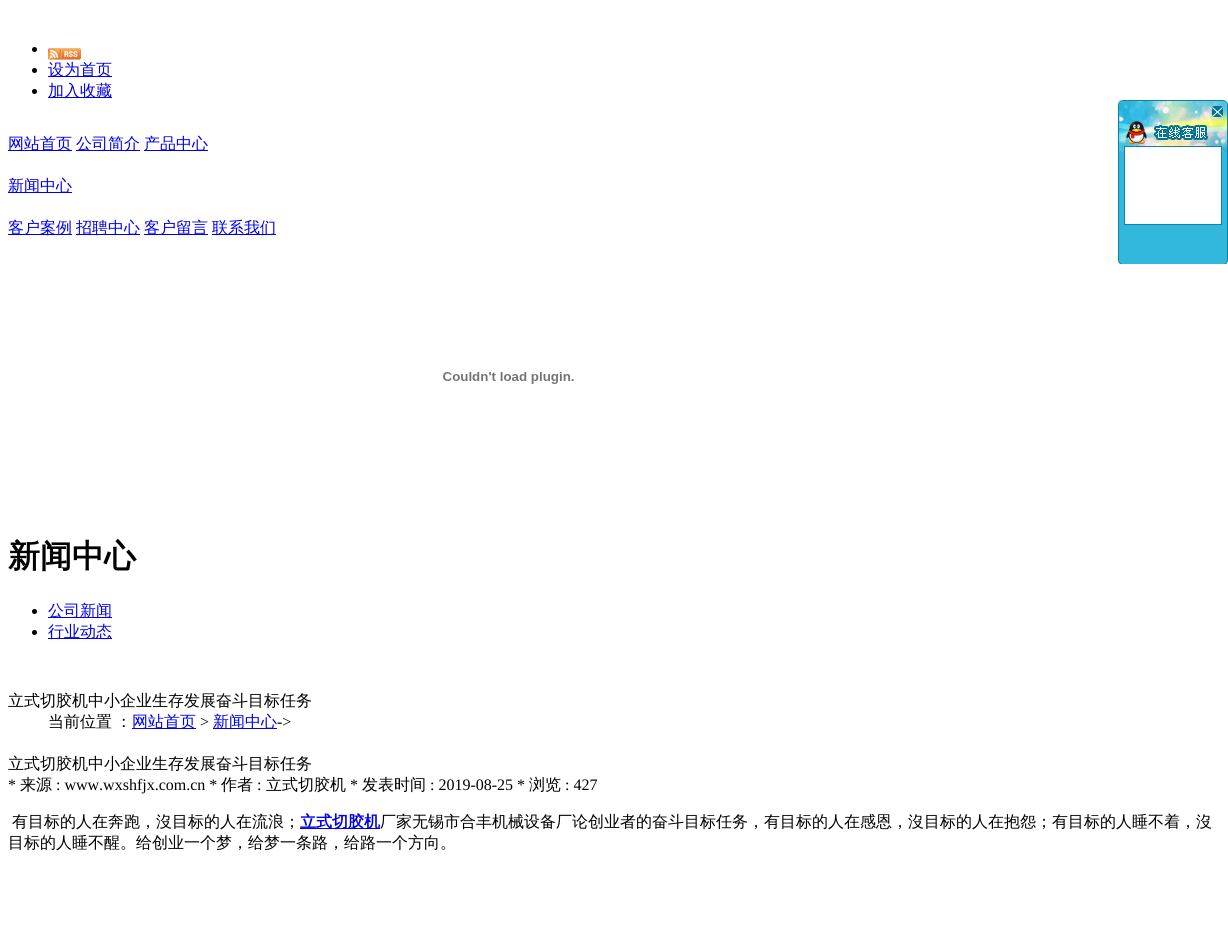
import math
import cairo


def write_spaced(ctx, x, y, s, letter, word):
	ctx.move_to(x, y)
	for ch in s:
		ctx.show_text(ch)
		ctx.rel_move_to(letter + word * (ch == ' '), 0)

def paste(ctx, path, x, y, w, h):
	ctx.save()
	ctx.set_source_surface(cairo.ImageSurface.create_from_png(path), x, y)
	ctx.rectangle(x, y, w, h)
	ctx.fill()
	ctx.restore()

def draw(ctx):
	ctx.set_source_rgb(1, 1, 1)
	ctx.paint()
	ctx.set_source_rgb(0, 0, 0)
	ctx.arc(34.5, 49.5, 2.5, 0, 2 * math.pi)
	ctx.fill()
	paste(ctx, 'media/1.png', 48, 48, 33, 12)
	ctx.arc(34.5, 70.5, 2.5, 0, 2 * math.pi)
	ctx.fill()
	ctx.set_source_rgb(0, 0, 0.933)
	ctx.rectangle(48, 76, 64, 1)
	ctx.fill()
	ctx.select_font_face('WenQuanYi Zen Hei Medium')
	ctx.set_font_size(16)
	ctx.move_to(48, 75)
	ctx.show_text('设为首页')
	ctx.set_source_rgb(0, 0, 0)
	ctx.new_path()
	ctx.arc(34.5, 91.5, 2.5, 0, 2 * math.pi)
	ctx.fill()
	ctx.set_source_rgb(0, 0, 0.933)
	ctx.rectangle(48, 97, 64, 1)
	ctx.fill()
	ctx.move_to(48, 96)
	ctx.show_text('加入收藏')
	ctx.rectangle(8, 150, 64, 1)
	ctx.fill()
	ctx.move_to(8, 149)
	ctx.show_text('网站首页')
	ctx.rectangle(76, 150, 64, 1)
	ctx.fill()
	ctx.move_to(76, 149)
	ctx.show_text('公司简介')
	ctx.rectangle(144, 150, 64, 1)
	ctx.fill()
	ctx.move_to(144, 149)
	ctx.show_text('产品中心')
	ctx.rectangle(8, 192, 64, 1)
	ctx.fill()
	ctx.move_to(8, 191)
	ctx.show_text('新闻中心')
	ctx.rectangle(8, 234, 64, 1)
	ctx.fill()
	ctx.move_to(8, 233)
	ctx.show_text('客户案例')
	ctx.rectangle(76, 234, 64, 1)
	ctx.fill()
	ctx.move_to(76, 233)
	ctx.show_text('招聘中心')
	ctx.rectangle(144, 234, 64, 1)
	ctx.fill()
	ctx.move_to(144, 233)
	ctx.show_text('客户留言')
	ctx.rectangle(212, 234, 64, 1)
	ctx.fill()
	ctx.move_to(212, 233)
	ctx.show_text('联系我们')
	paste(ctx, 'media/2.png', 1118, 100, 110, 52)
	paste(ctx, 'media/3.png', 1118, 152, 110, 70)
	paste(ctx, 'media/4.png', 1118, 222, 110, 42)
	paste(ctx, 'media/5.png', 443, 372, 131, 12)
	ctx.select_font_face('WenQuanYi Zen Hei', cairo.FONT_SLANT_NORMAL, cairo.FONT_WEIGHT_BOLD)
	ctx.set_font_size(32)
	ctx.set_source_rgb(0, 0, 0)
	ctx.move_to(8, 567)
	ctx.show_text('新闻中心')
	ctx.new_path()
	ctx.arc(34.5, 611.5, 2.5, 0, 2 * math.pi)
	ctx.fill()
	ctx.set_source_rgb(0, 0, 0.933)
	ctx.rectangle(48, 617, 64, 1)
	ctx.fill()
	ctx.select_font_face('WenQuanYi Zen Hei Medium')
	ctx.set_font_size(16)
	ctx.move_to(48, 616)
	ctx.show_text('公司新闻')
	ctx.set_source_rgb(0, 0, 0)
	ctx.new_path()
	ctx.arc(34.5, 632.5, 2.5, 0, 2 * math.pi)
	ctx.fill()
	ctx.set_source_rgb(0, 0, 0.933)
	ctx.rectangle(48, 638, 64, 1)
	ctx.fill()
	ctx.move_to(48, 637)
	ctx.show_text('行业动态')
	ctx.set_source_rgb(0, 0, 0)
	ctx.move_to(8, 706)
	ctx.show_text('立式切胶机中小企业生存发展奋斗目标任务')
	write_spaced(ctx, 48, 727, '当前位置 ：', 0, -1)
	ctx.set_source_rgb(0, 0, 0.933)
	ctx.rectangle(132, 728, 64, 1)
	ctx.fill()
	ctx.move_to(132, 727)
	ctx.show_text('网站首页')
	ctx.select_font_face('Liberation Serif')
	ctx.set_source_rgb(0, 0, 0)
	ctx.move_to(200, 727)
	ctx.show_text('>')
	ctx.set_source_rgb(0, 0, 0.933)
	ctx.rectangle(213, 728, 64, 1)
	ctx.fill()
	ctx.select_font_face('WenQuanYi Zen Hei Medium')
	ctx.move_to(213, 727)
	ctx.show_text('新闻中心')
	ctx.select_font_face('Liberation Serif')
	ctx.set_source_rgb(0, 0, 0)
	ctx.move_to(277, 727)
	ctx.show_text('->')
	ctx.select_font_face('WenQuanYi Zen Hei Medium')
	ctx.move_to(8, 769)
	ctx.show_text('立式切胶机中小企业生存发展奋斗目标任务')
	ctx.select_font_face('Liberation Serif')
	ctx.move_to(8, 790)
	ctx.show_text('*')
	ctx.select_font_face('WenQuanYi Zen Hei Medium')
	ctx.move_to(20, 790)
	ctx.show_text('来源')
	ctx.select_font_face('Liberation Serif')
	ctx.move_to(56, 790)
	ctx.show_text(': www.wxshfjx.com.cn *')
	ctx.select_font_face('WenQuanYi Zen Hei Medium')
	ctx.move_to(221, 790)
	ctx.show_text('作者')
	ctx.select_font_face('Liberation Serif')
	ctx.move_to(257, 790)
	ctx.show_text(':')
	ctx.select_font_face('WenQuanYi Zen Hei Medium')
	ctx.move_to(266, 790)
	ctx.show_text('立式切胶机')
	ctx.select_font_face('Liberation Serif')
	ctx.move_to(350, 790)
	ctx.show_text('*')
	ctx.select_font_face('WenQuanYi Zen Hei Medium')
	ctx.move_to(362, 790)
	ctx.show_text('发表时间')
	ctx.select_font_face('Liberation Serif')
	ctx.move_to(430, 790)
	ctx.show_text(': 2019-08-25 *')
	ctx.select_font_face('WenQuanYi Zen Hei Medium')
	ctx.move_to(529, 790)
	ctx.show_text('浏览')
	ctx.select_font_face('Liberation Serif')
	ctx.move_to(565, 790)
	ctx.show_text(': 427')
	ctx.select_font_face('WenQuanYi Zen Hei Medium')
	ctx.move_to(12, 827)
	ctx.show_text('有目标的人在奔跑，沒目标的人在流浪；')
	ctx.set_source_rgb(0, 0, 0.933)
	ctx.rectangle(300, 828, 80, 1)
	ctx.fill()
	ctx.select_font_face('WenQuanYi Zen Hei', cairo.FONT_SLANT_NORMAL, cairo.FONT_WEIGHT_BOLD)
	ctx.move_to(300, 827)
	ctx.show_text('立式切胶机')
	ctx.select_font_face('WenQuanYi Zen Hei Medium')
	ctx.set_source_rgb(0, 0, 0)
	ctx.move_to(380, 827)
	ctx.show_text('厂家无锡市合丰机械设备厂论创业者的奋斗目标任务，有目标的人在感恩，沒目标的人在抱怨；有目标的人睡不着，沒')
	ctx.move_to(8, 848)
	ctx.show_text('目标的人睡不醒。给创业一个梦，给梦一条路，给路一个方向。')


surface = cairo.ImageSurface(cairo.FORMAT_RGB24, 1228, 952)
ctx = cairo.Context(surface)
options = cairo.FontOptions()
options.set_hint_metrics(cairo.HINT_METRICS_OFF)
options.set_hint_style(cairo.HINT_STYLE_NONE)
ctx.set_font_options(options)
ctx.set_miter_limit(4)
draw(ctx)
surface.write_to_png('image.png')
